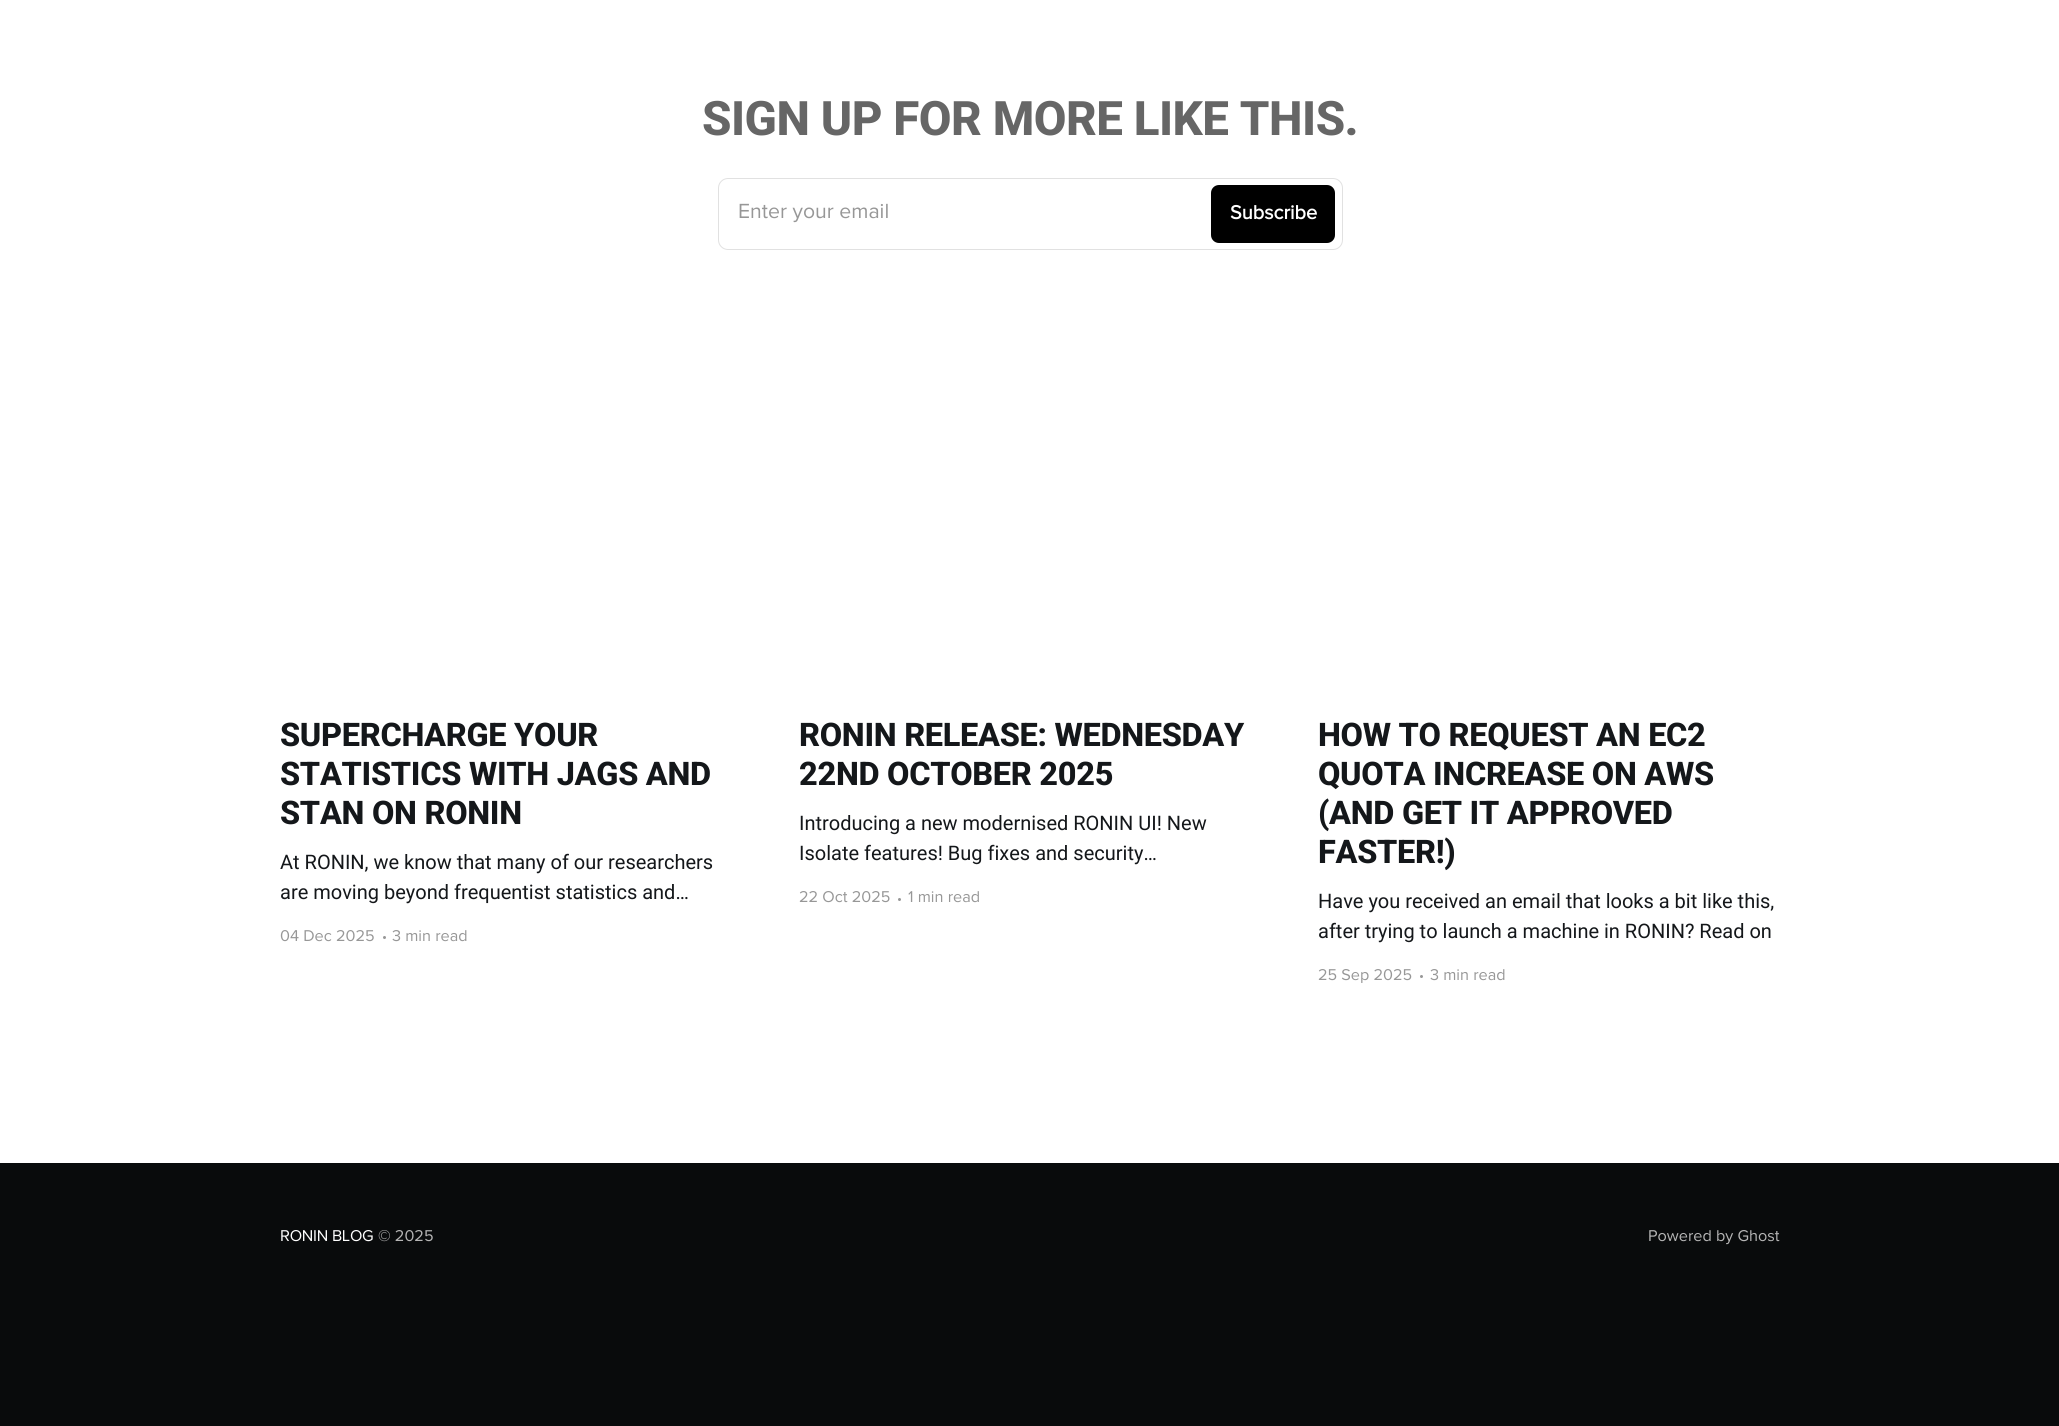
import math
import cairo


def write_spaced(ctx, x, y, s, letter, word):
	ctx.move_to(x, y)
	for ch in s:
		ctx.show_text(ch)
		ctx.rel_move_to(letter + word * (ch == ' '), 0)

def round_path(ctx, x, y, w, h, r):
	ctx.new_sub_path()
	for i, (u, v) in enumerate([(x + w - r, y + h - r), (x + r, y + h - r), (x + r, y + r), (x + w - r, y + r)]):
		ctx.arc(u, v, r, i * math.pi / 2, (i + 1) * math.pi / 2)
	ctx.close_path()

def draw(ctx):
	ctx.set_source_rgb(1, 1, 1)
	ctx.paint()
	ctx.select_font_face('Roboto ExtraBold')
	ctx.set_font_size(47.5)
	ctx.set_source_rgb(0.4, 0.4, 0.4)
	write_spaced(ctx, 702, 135, 'SIGN UP FOR MORE LIKE THIS.', -0.5, 0)
	round_path(ctx, 718.5, 178.5, 624, 71, 9.5)
	ctx.set_source_rgb(0.882, 0.882, 0.882)
	ctx.set_line_width(1)
	ctx.stroke()
	ctx.select_font_face('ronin')
	ctx.set_font_size(21.25)
	ctx.set_source_rgb(0.592, 0.592, 0.592)
	ctx.move_to(738, 218)
	ctx.show_text('Enter your email')
	ctx.set_source_rgb(0, 0, 0)
	round_path(ctx, 1211, 185, 124, 58, 8)
	ctx.fill()
	ctx.select_font_face('ronin', cairo.FONT_SLANT_NORMAL, cairo.FONT_WEIGHT_BOLD)
	ctx.set_font_size(20)
	ctx.set_source_rgb(1, 1, 1)
	ctx.move_to(1230, 219)
	ctx.show_text('Subscribe')
	ctx.select_font_face('Roboto ExtraBold')
	ctx.set_font_size(32.5)
	ctx.set_source_rgb(0.082, 0.09, 0.102)
	for x, y, s in [
		(280, 746, 'SUPERCHARGE YOUR'),
		(280, 785, 'STATISTICS WITH JAGS AND'),
		(280, 824, 'STAN ON RONIN'),
	]:
		write_spaced(ctx, x, y, s, -0.3, 0)
	ctx.select_font_face('Roboto')
	ctx.set_font_size(20)
	ctx.move_to(280, 869)
	ctx.show_text('At RONIN, we know that many of our researchers')
	ctx.move_to(280, 899)
	ctx.show_text('are moving beyond frequentist statistics and…')
	ctx.select_font_face('ronin')
	ctx.set_font_size(16.25)
	ctx.set_source_rgb(0.592, 0.592, 0.592)
	ctx.move_to(280, 941)
	ctx.show_text('04 Dec 2025')
	ctx.new_path()
	ctx.arc(384.5, 937.5, 1.5, 0, 2 * math.pi)
	ctx.fill()
	ctx.move_to(392, 941)
	ctx.show_text('3 min read')
	ctx.select_font_face('Roboto ExtraBold')
	ctx.set_font_size(32.5)
	ctx.set_source_rgb(0.082, 0.09, 0.102)
	write_spaced(ctx, 799, 746, 'RONIN RELEASE: WEDNESDAY', -0.3, 0)
	write_spaced(ctx, 799, 785, '22ND OCTOBER 2025', -0.3, 0)
	ctx.select_font_face('Roboto')
	ctx.set_font_size(20)
	ctx.move_to(799, 830)
	ctx.show_text('Introducing a new modernised RONIN UI! New')
	ctx.move_to(799, 860)
	ctx.show_text('Isolate features! Bug fixes and security…')
	ctx.select_font_face('ronin')
	ctx.set_font_size(16.25)
	ctx.set_source_rgb(0.592, 0.592, 0.592)
	ctx.move_to(799, 902)
	ctx.show_text('22 Oct 2025')
	ctx.new_path()
	ctx.arc(899.5, 899.5, 1.5, 0, 2 * math.pi)
	ctx.fill()
	ctx.move_to(908, 902)
	ctx.show_text('1 min read')
	ctx.select_font_face('Roboto ExtraBold')
	ctx.set_font_size(32.5)
	ctx.set_source_rgb(0.082, 0.09, 0.102)
	for x, y, s in [
		(1318, 746, 'HOW TO REQUEST AN EC2'),
		(1318, 785, 'QUOTA INCREASE ON AWS'),
		(1318, 824, '(AND GET IT APPROVED'),
		(1318, 863, 'FASTER!)'),
	]:
		write_spaced(ctx, x, y, s, -0.3, 0)
	ctx.select_font_face('Roboto')
	ctx.set_font_size(20)
	ctx.move_to(1318, 908)
	ctx.show_text('Have you received an email that looks a bit like this,')
	ctx.move_to(1318, 938)
	ctx.show_text('after trying to launch a machine in RONIN? Read on')
	ctx.select_font_face('ronin')
	ctx.set_font_size(16.25)
	ctx.set_source_rgb(0.592, 0.592, 0.592)
	ctx.move_to(1318, 980)
	ctx.show_text('25 Sep 2025')
	ctx.new_path()
	ctx.arc(1421.5, 976.5, 1.5, 0, 2 * math.pi)
	ctx.fill()
	ctx.move_to(1430, 980)
	ctx.show_text('3 min read')
	ctx.set_source_rgb(0.039, 0.043, 0.047)
	ctx.rectangle(0, 1163, 2059, 263)
	ctx.fill()
	ctx.set_source_rgb(1, 1, 1)
	write_spaced(ctx, 280, 1241, 'RONIN BLOG', -0.25, 0)
	ctx.set_source_rgb(0.714, 0.714, 0.714)
	ctx.move_to(378, 1241)
	ctx.show_text('© 2025')
	ctx.move_to(1648, 1241)
	ctx.show_text('Powered by Ghost')


surface = cairo.ImageSurface(cairo.FORMAT_RGB24, 2059, 1426)
ctx = cairo.Context(surface)
options = cairo.FontOptions()
options.set_hint_metrics(cairo.HINT_METRICS_OFF)
options.set_hint_style(cairo.HINT_STYLE_NONE)
ctx.set_font_options(options)
ctx.set_miter_limit(4)
draw(ctx)
surface.write_to_png('image.png')
